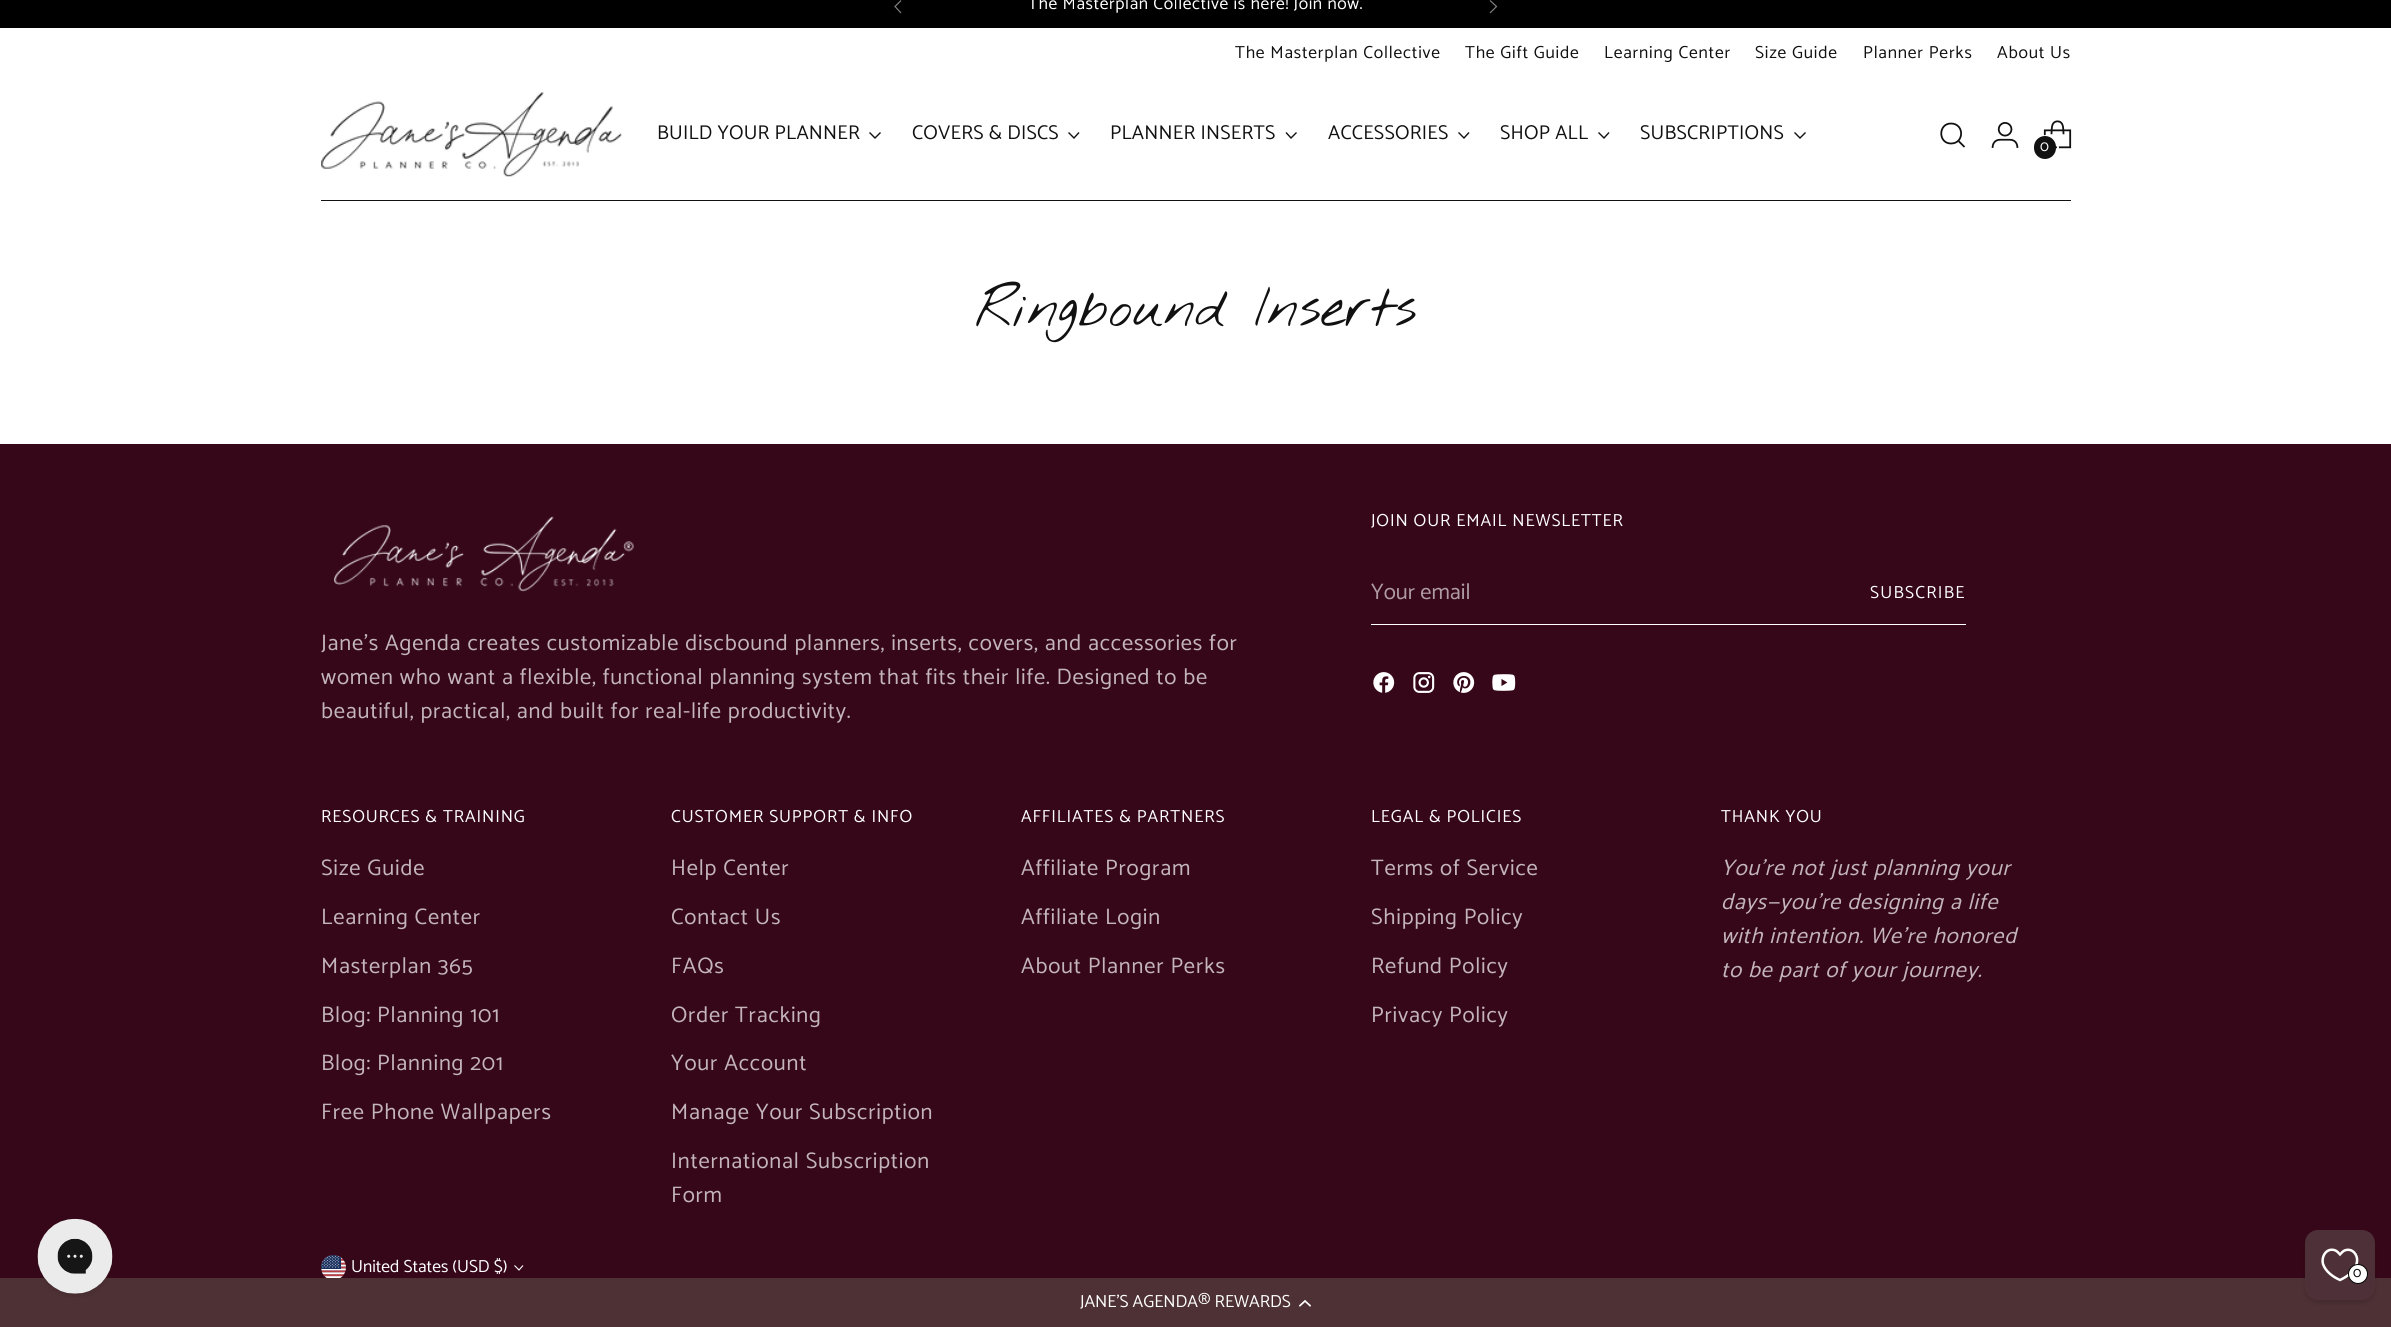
import math
import cairo


def write_spaced(ctx, x, y, s, letter, word):
	ctx.move_to(x, y)
	for ch in s:
		ctx.show_text(ch)
		ctx.rel_move_to(letter + word * (ch == ' '), 0)

def round_path(ctx, x, y, w, h, r):
	ctx.new_sub_path()
	for i, (u, v) in enumerate([(x + w - r, y + h - r), (x + r, y + h - r), (x + r, y + r), (x + w - r, y + r)]):
		ctx.arc(u, v, r, i * math.pi / 2, (i + 1) * math.pi / 2)
	ctx.close_path()

def blur_box(ctx, x, y, w, h, r, blur, alpha):
	ctx.push_group_with_content(cairo.CONTENT_ALPHA)
	ctx.set_operator(cairo.OPERATOR_SOURCE)
	for i in range(15, -16, -2):
		e = blur * i / 6
		if min(w, h) + 2 * e > 0:
			ctx.set_source_rgba(0, 0, 0, alpha * math.erfc((i - 1) / 8.5) / 2)
			round_path(ctx, x - e, y - e, w + 2 * e, h + 2 * e, max(0, min(r + e + blur * .6, min(w, h) / 2 + e)))
			ctx.fill()
	ctx.mask(ctx.pop_group())

def paste(ctx, path, x, y, w, h):
	ctx.save()
	ctx.set_source_surface(cairo.ImageSurface.create_from_png(path), x, y)
	ctx.rectangle(x, y, w, h)
	ctx.fill()
	ctx.restore()

def draw(ctx):
	ctx.set_source_rgb(1, 1, 1)
	ctx.paint()
	ctx.set_source_rgb(0.212, 0.031, 0.094)
	ctx.rectangle(0, 444, 2391, 834)
	ctx.fill()
	ctx.set_source_rgb(0.306, 0.192, 0.208)
	ctx.rectangle(0, 1278, 2391, 49)
	ctx.fill()
	paste(ctx, 'media/1.png', 37, 1218, 76, 79)
	ctx.set_source_rgb(0, 0, 0)
	ctx.rectangle(0, 0, 2391, 28)
	ctx.fill()
	ctx.new_path()
	ctx.move_to(901, 0.5)
	ctx.line_to(895, 6.5)
	ctx.line_to(901, 13)
	ctx.set_source_rgb(0.502, 0.502, 0.502)
	ctx.set_line_width(1.2)
	ctx.stroke()
	ctx.new_path()
	ctx.move_to(1490, 13)
	ctx.line_to(1496.5, 6.5)
	ctx.line_to(1490, 0.5)
	ctx.stroke()
	ctx.select_font_face('Catamaran Thin')
	ctx.set_font_size(17.5)
	ctx.set_source_rgb(1, 1, 1)
	write_spaced(ctx, 1028, 9, 'The Masterplan Collective is here! Join now.', 0.6, 0)
	ctx.set_source_rgb(0.067, 0.067, 0.067)
	ctx.rectangle(321, 200, 1750, 1)
	ctx.fill()
	for x, y, s in [
		(1235, 58, 'The Masterplan Collective'),
		(1465, 58, 'The Gift Guide'),
		(1604, 58, 'Learning Center'),
		(1755, 58, 'Size Guide'),
		(1863, 58, 'Planner Perks'),
		(1997, 58, 'About Us'),
	]:
		write_spaced(ctx, x, y, s, 0.8, 0)
	paste(ctx, 'media/2.png', 321, 92, 301, 85)
	ctx.set_font_size(20)
	write_spaced(ctx, 657, 139, 'BUILD YOUR PLANNER', 0.25, 0)
	ctx.new_path()
	ctx.move_to(869.5, 132.5)
	ctx.line_to(875, 138)
	ctx.line_to(880.5, 132.5)
	ctx.set_line_width(1.4)
	ctx.stroke()
	write_spaced(ctx, 912, 139, 'COVERS & DISCS', 0.25, 0)
	ctx.new_path()
	ctx.move_to(1068.5, 132.5)
	ctx.line_to(1074, 138)
	ctx.line_to(1079, 132.5)
	ctx.stroke()
	write_spaced(ctx, 1110, 139, 'PLANNER INSERTS', 0.25, 0)
	ctx.new_path()
	ctx.move_to(1286, 132.5)
	ctx.line_to(1291, 138)
	ctx.line_to(1296.5, 132.5)
	ctx.stroke()
	write_spaced(ctx, 1328, 139, 'ACCESSORIES', 0.25, 0)
	ctx.new_path()
	ctx.move_to(1458.5, 132.5)
	ctx.line_to(1464, 138)
	ctx.line_to(1469, 132.5)
	ctx.stroke()
	write_spaced(ctx, 1500, 139, 'SHOP ALL', 0.25, 0)
	ctx.new_path()
	ctx.move_to(1598.5, 132.5)
	ctx.line_to(1604, 138)
	ctx.line_to(1609, 132.5)
	ctx.stroke()
	write_spaced(ctx, 1640, 139, 'SUBSCRIPTIONS', 0.25, 0)
	ctx.new_path()
	ctx.move_to(1794.5, 132.5)
	ctx.line_to(1800, 138)
	ctx.line_to(1805.5, 132.5)
	ctx.stroke()
	ctx.new_path()
	ctx.move_to(1951, 143.5)
	ctx.curve_to(1964.5, 143.5, 1964.5, 123.5, 1951, 123.5)
	ctx.curve_to(1938, 123.5, 1938, 143.5, 1951, 143.5)
	ctx.close_path()
	ctx.set_line_width(1.8)
	ctx.set_line_cap(cairo.LINE_CAP_ROUND)
	ctx.stroke()
	ctx.new_path()
	ctx.move_to(1958.5, 141)
	ctx.line_to(1964.5, 147)
	ctx.set_line_cap(cairo.LINE_CAP_BUTT)
	ctx.stroke()
	paste(ctx, 'media/3.png', 1991, 122, 28, 26)
	paste(ctx, 'media/4.png', 2043, 120, 29, 29)
	ctx.arc(2046, 148, 12, 0, 2 * math.pi)
	ctx.set_source_rgb(1, 1, 1)
	ctx.set_line_width(2)
	ctx.stroke()
	ctx.set_source_rgb(0.067, 0.067, 0.067)
	round_path(ctx, 2034, 136, 22, 23, 11)
	ctx.fill()
	ctx.set_font_size(15)
	ctx.set_source_rgb(1, 1, 1)
	write_spaced(ctx, 2040, 151, '0', 0.8, 0)
	ctx.select_font_face('Nothing You Could Do')
	ctx.set_font_size(56.25)
	ctx.set_source_rgb(0.067, 0.067, 0.067)
	ctx.move_to(975, 326)
	ctx.show_text('Ringbound Inserts')
	ctx.select_font_face('Catamaran Thin')
	ctx.set_font_size(17.5)
	ctx.set_source_rgb(1, 1, 1)
	write_spaced(ctx, 1371, 526, 'JOIN OUR EMAIL NEWSLETTER', 0.9, 0)
	ctx.rectangle(1371, 624, 595, 1)
	ctx.fill()
	ctx.set_font_size(22.5)
	ctx.set_source_rgb(0.686, 0.612, 0.639)
	ctx.move_to(1371, 599)
	ctx.show_text('Your email')
	ctx.set_font_size(17.5)
	ctx.set_source_rgb(1, 1, 1)
	write_spaced(ctx, 1870, 598, 'SUBSCRIBE', 1.25, 0)
	paste(ctx, 'media/5.png', 1373, 672, 22, 21)
	paste(ctx, 'media/6.png', 1413, 672, 22, 21)
	paste(ctx, 'media/7.png', 1453, 672, 22, 21)
	paste(ctx, 'media/8.png', 1492, 674, 24, 17)
	paste(ctx, 'media/9.png', 334, 516, 300, 76)
	ctx.set_font_size(22.5)
	ctx.set_source_rgb(0.765, 0.71, 0.729)
	for x, y, s in [
		(321, 650, 'Jane’s Agenda creates customizable discbound planners, inserts, covers, and accessories for'),
		(321, 684, 'women who want a flexible, functional planning system that fits their life. Designed to be'),
		(321, 718, 'beautiful, practical, and built for real-life productivity.'),
	]:
		write_spaced(ctx, x, y, s, 0.8, 0)
	ctx.set_font_size(17.5)
	ctx.set_source_rgb(1, 1, 1)
	write_spaced(ctx, 321, 822, 'RESOURCES & TRAINING', 0.9, 0)
	ctx.set_font_size(22.5)
	ctx.set_source_rgb(0.765, 0.71, 0.729)
	for x, y, s in [
		(321, 875, 'Size Guide'),
		(321, 924, 'Learning Center'),
		(321, 973, 'Masterplan 365'),
		(321, 1022, 'Blog: Planning 101'),
		(321, 1070, 'Blog: Planning 201'),
		(321, 1119, 'Free Phone Wallpapers'),
	]:
		write_spaced(ctx, x, y, s, 0.8, 0)
	ctx.set_font_size(17.5)
	ctx.set_source_rgb(1, 1, 1)
	write_spaced(ctx, 671, 822, 'CUSTOMER SUPPORT & INFO', 0.9, 0)
	ctx.set_font_size(22.5)
	ctx.set_source_rgb(0.765, 0.71, 0.729)
	for x, y, s in [
		(671, 875, 'Help Center'),
		(671, 924, 'Contact Us'),
		(671, 973, 'FAQs'),
		(671, 1022, 'Order Tracking'),
		(671, 1070, 'Your Account'),
		(671, 1119, 'Manage Your Subscription'),
		(671, 1168, 'International Subscription'),
		(671, 1202, 'Form'),
	]:
		write_spaced(ctx, x, y, s, 0.8, 0)
	ctx.set_font_size(17.5)
	ctx.set_source_rgb(1, 1, 1)
	write_spaced(ctx, 1021, 822, 'AFFILIATES & PARTNERS', 0.9, 0)
	ctx.set_font_size(22.5)
	ctx.set_source_rgb(0.765, 0.71, 0.729)
	for x, y, s in [
		(1021, 875, 'Affiliate Program'),
		(1021, 924, 'Affiliate Login'),
		(1021, 973, 'About Planner Perks'),
	]:
		write_spaced(ctx, x, y, s, 0.8, 0)
	ctx.set_font_size(17.5)
	ctx.set_source_rgb(1, 1, 1)
	write_spaced(ctx, 1371, 822, 'LEGAL & POLICIES', 0.9, 0)
	ctx.set_font_size(22.5)
	ctx.set_source_rgb(0.765, 0.71, 0.729)
	for x, y, s in [
		(1371, 875, 'Terms of Service'),
		(1371, 924, 'Shipping Policy'),
		(1371, 973, 'Refund Policy'),
		(1371, 1022, 'Privacy Policy'),
	]:
		write_spaced(ctx, x, y, s, 0.8, 0)
	ctx.set_font_size(17.5)
	ctx.set_source_rgb(1, 1, 1)
	write_spaced(ctx, 1721, 822, 'THANK YOU', 0.9, 0)
	ctx.select_font_face('Catamaran Thin', cairo.FONT_SLANT_ITALIC)
	ctx.set_font_size(22.5)
	ctx.set_source_rgb(0.765, 0.71, 0.729)
	for x, y, s in [
		(1721, 875, 'You’re not just planning your'),
		(1721, 909, 'days—you’re designing a life'),
		(1721, 943, 'with intention. We’re honored'),
		(1721, 977, 'to be part of your journey.'),
	]:
		write_spaced(ctx, x, y, s, 0.8, 0)
	paste(ctx, 'media/10.png', 321, 1255, 25, 23)
	ctx.select_font_face('Catamaran Thin')
	ctx.set_font_size(17.5)
	ctx.set_source_rgb(1, 1, 1)
	ctx.move_to(351, 1272)
	ctx.show_text('United States (USD $)')
	ctx.new_path()
	ctx.move_to(514.5, 1265.5)
	ctx.line_to(519, 1270)
	ctx.line_to(523, 1265.5)
	ctx.set_line_width(1.1)
	ctx.stroke()
	ctx.set_source_rgb(0, 0, 0)
	blur_box(ctx, 2305, 1233, 70, 70, 13, 2.5, 0.15)
	ctx.set_source_rgb(0.306, 0.192, 0.22)
	round_path(ctx, 2307.5, 1232.5, 65, 65, 10.5)
	ctx.fill_preserve()
	ctx.set_line_width(5)
	ctx.stroke()
	ctx.new_path()
	ctx.move_to(2340, 1280)
	ctx.curve_to(2333, 1277, 2325.5, 1271.5, 2323, 1264)
	ctx.curve_to(2321, 1256, 2327, 1247, 2335.5, 1250.5)
	ctx.curve_to(2337.5, 1251.5, 2338.5, 1253, 2340, 1254.5)
	ctx.curve_to(2341.5, 1253, 2342.5, 1251.5, 2344.5, 1250.5)
	ctx.curve_to(2352, 1247.5, 2358, 1254.5, 2357, 1261.5)
	ctx.curve_to(2356, 1270.5, 2347.5, 1276.5, 2340, 1280)
	ctx.close_path()
	ctx.set_source_rgb(1, 1, 1)
	ctx.set_line_width(2.5)
	ctx.stroke()
	ctx.arc(2358, 1274, 9.5, 0, 2 * math.pi)
	ctx.fill_preserve()
	ctx.set_source_rgb(0, 0, 0)
	ctx.set_line_width(1)
	ctx.stroke()
	ctx.set_font_size(14)
	write_spaced(ctx, 2353, 1277, '0', 0.8, 0)
	ctx.set_font_size(17.5)
	ctx.set_source_rgb(1, 1, 1)
	ctx.move_to(1080, 1307)
	ctx.show_text('JANE\'S AGENDA® REWARDS')
	paste(ctx, 'media/11.png', 1299, 1299, 12, 8)


surface = cairo.ImageSurface(cairo.FORMAT_RGB24, 2391, 1327)
ctx = cairo.Context(surface)
options = cairo.FontOptions()
options.set_hint_metrics(cairo.HINT_METRICS_OFF)
options.set_hint_style(cairo.HINT_STYLE_NONE)
ctx.set_font_options(options)
ctx.set_miter_limit(4)
draw(ctx)
surface.write_to_png('image.png')
